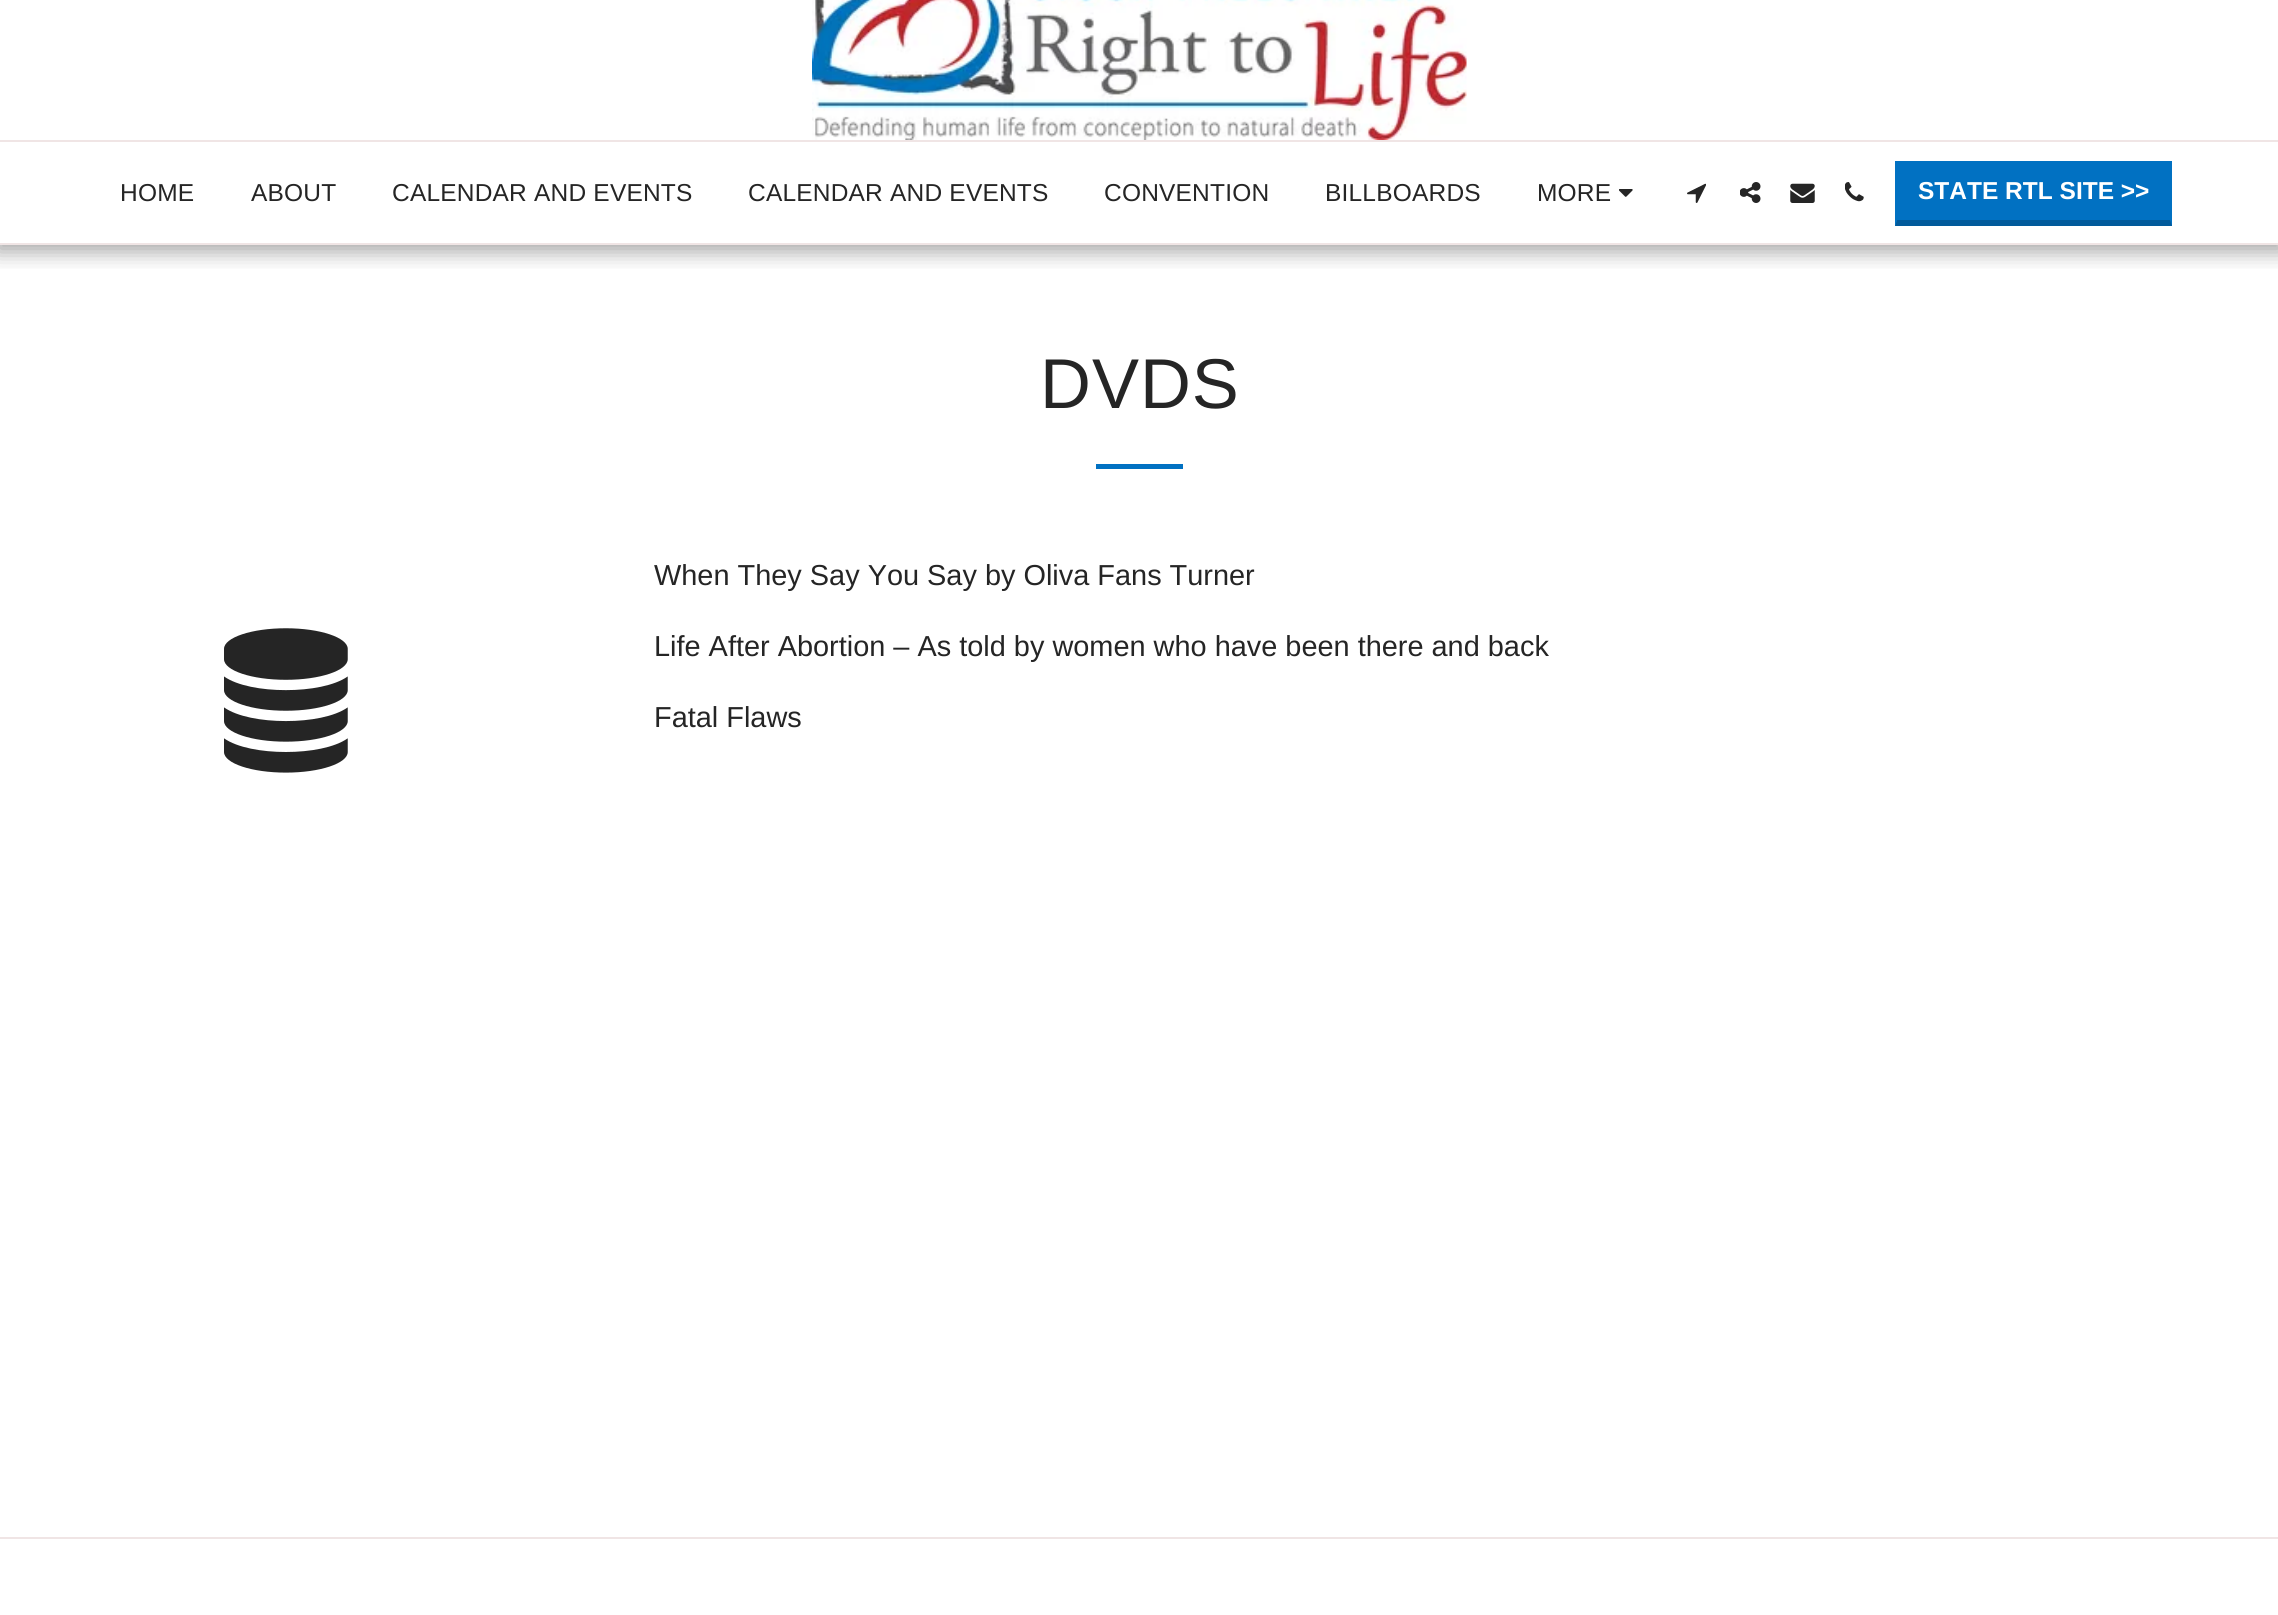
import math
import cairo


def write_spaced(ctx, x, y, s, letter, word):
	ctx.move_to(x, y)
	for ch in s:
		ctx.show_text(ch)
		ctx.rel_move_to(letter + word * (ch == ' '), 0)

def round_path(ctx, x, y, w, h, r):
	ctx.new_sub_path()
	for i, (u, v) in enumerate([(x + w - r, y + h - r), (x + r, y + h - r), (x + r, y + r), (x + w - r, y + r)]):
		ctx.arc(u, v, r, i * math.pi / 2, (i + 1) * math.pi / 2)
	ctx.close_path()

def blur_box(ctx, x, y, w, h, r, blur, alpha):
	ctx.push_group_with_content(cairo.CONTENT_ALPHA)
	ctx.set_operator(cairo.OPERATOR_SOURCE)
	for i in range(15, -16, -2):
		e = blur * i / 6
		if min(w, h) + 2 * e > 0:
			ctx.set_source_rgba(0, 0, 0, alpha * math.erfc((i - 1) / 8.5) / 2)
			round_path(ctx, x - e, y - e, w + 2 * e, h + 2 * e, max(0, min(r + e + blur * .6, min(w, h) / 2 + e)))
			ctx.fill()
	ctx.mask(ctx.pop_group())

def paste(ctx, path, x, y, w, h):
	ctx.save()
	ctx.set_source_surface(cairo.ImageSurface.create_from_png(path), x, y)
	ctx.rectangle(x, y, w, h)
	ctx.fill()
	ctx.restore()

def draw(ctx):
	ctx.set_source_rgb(1, 1, 1)
	ctx.paint()
	ctx.save()
	ctx.rectangle(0, 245, 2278, 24)
	ctx.clip()
	ctx.set_source_rgb(0, 0, 0)
	blur_box(ctx, -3, -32, 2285, 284, 0, 10.5, 0.35)
	ctx.restore()
	ctx.set_source_rgb(0.941, 0.898, 0.898)
	ctx.rectangle(0, 243, 2278, 2)
	ctx.fill()
	paste(ctx, 'media/1.png', 812, 0, 655, 140)
	ctx.rectangle(0, 140, 2278, 2)
	ctx.fill()
	ctx.select_font_face('Liberation Sans')
	ctx.set_font_size(24.5)
	ctx.set_source_rgb(0.145, 0.145, 0.145)
	for x, y, s in [
		(120, 201, 'HOME'),
		(251, 201, 'ABOUT'),
		(392, 201, 'CALENDAR AND EVENTS'),
		(748, 201, 'CALENDAR AND EVENTS'),
		(1104, 201, 'CONVENTION'),
		(1325, 201, 'BILLBOARDS'),
		(1537, 201, 'MORE'),
	]:
		write_spaced(ctx, x, y, s, 0.2, 0)
	paste(ctx, 'media/2.png', 1619, 189, 14, 8)
	paste(ctx, 'media/3.png', 1687, 183, 19, 20)
	paste(ctx, 'media/4.png', 1740, 182, 21, 21)
	paste(ctx, 'media/5.png', 1790, 183, 25, 20)
	paste(ctx, 'media/6.png', 1845, 182, 19, 20)
	ctx.set_source_rgb(0.004, 0.443, 0.761)
	ctx.rectangle(1895, 161, 277, 65)
	ctx.fill()
	ctx.set_source_rgb(0.004, 0.353, 0.608)
	ctx.new_path()
	ctx.move_to(2172, 226)
	ctx.line_to(1895, 226)
	ctx.line_to(1897, 220)
	ctx.line_to(2170, 220)
	ctx.close_path()
	ctx.fill()
	ctx.set_source_rgb(0.004, 0.443, 0.761)
	ctx.new_path()
	ctx.move_to(1895, 226)
	ctx.line_to(1895, 161)
	ctx.line_to(1897, 163)
	ctx.line_to(1897, 220)
	ctx.close_path()
	ctx.fill()
	ctx.select_font_face('Liberation Sans', cairo.FONT_SLANT_NORMAL, cairo.FONT_WEIGHT_BOLD)
	ctx.set_source_rgb(1, 1, 1)
	ctx.move_to(1918, 199)
	ctx.show_text('STATE RTL SITE >>')
	ctx.select_font_face('Liberation Sans')
	ctx.set_font_size(70.5)
	ctx.set_source_rgb(0.145, 0.145, 0.145)
	write_spaced(ctx, 1040, 408, 'DVDS', 1, 0)
	ctx.set_source_rgb(0.004, 0.443, 0.761)
	ctx.rectangle(1096, 464, 87, 5)
	ctx.fill()
	paste(ctx, 'media/7.png', 224, 628, 124, 145)
	ctx.set_font_size(28.9)
	ctx.set_source_rgb(0.145, 0.145, 0.145)
	for x, y, s in [
		(654, 585, 'When They Say You Say by Oliva Fans Turner'),
		(654, 656, 'Life After Abortion – As told by women who have been there and back'),
		(654, 727, 'Fatal Flaws'),
	]:
		ctx.move_to(x, y)
		ctx.show_text(s)
	ctx.set_source_rgb(0.941, 0.898, 0.898)
	ctx.rectangle(0, 1537, 2278, 2)
	ctx.fill()


surface = cairo.ImageSurface(cairo.FORMAT_RGB24, 2278, 1615)
ctx = cairo.Context(surface)
options = cairo.FontOptions()
options.set_hint_metrics(cairo.HINT_METRICS_OFF)
options.set_hint_style(cairo.HINT_STYLE_NONE)
ctx.set_font_options(options)
ctx.set_miter_limit(4)
draw(ctx)
surface.write_to_png('image.png')
